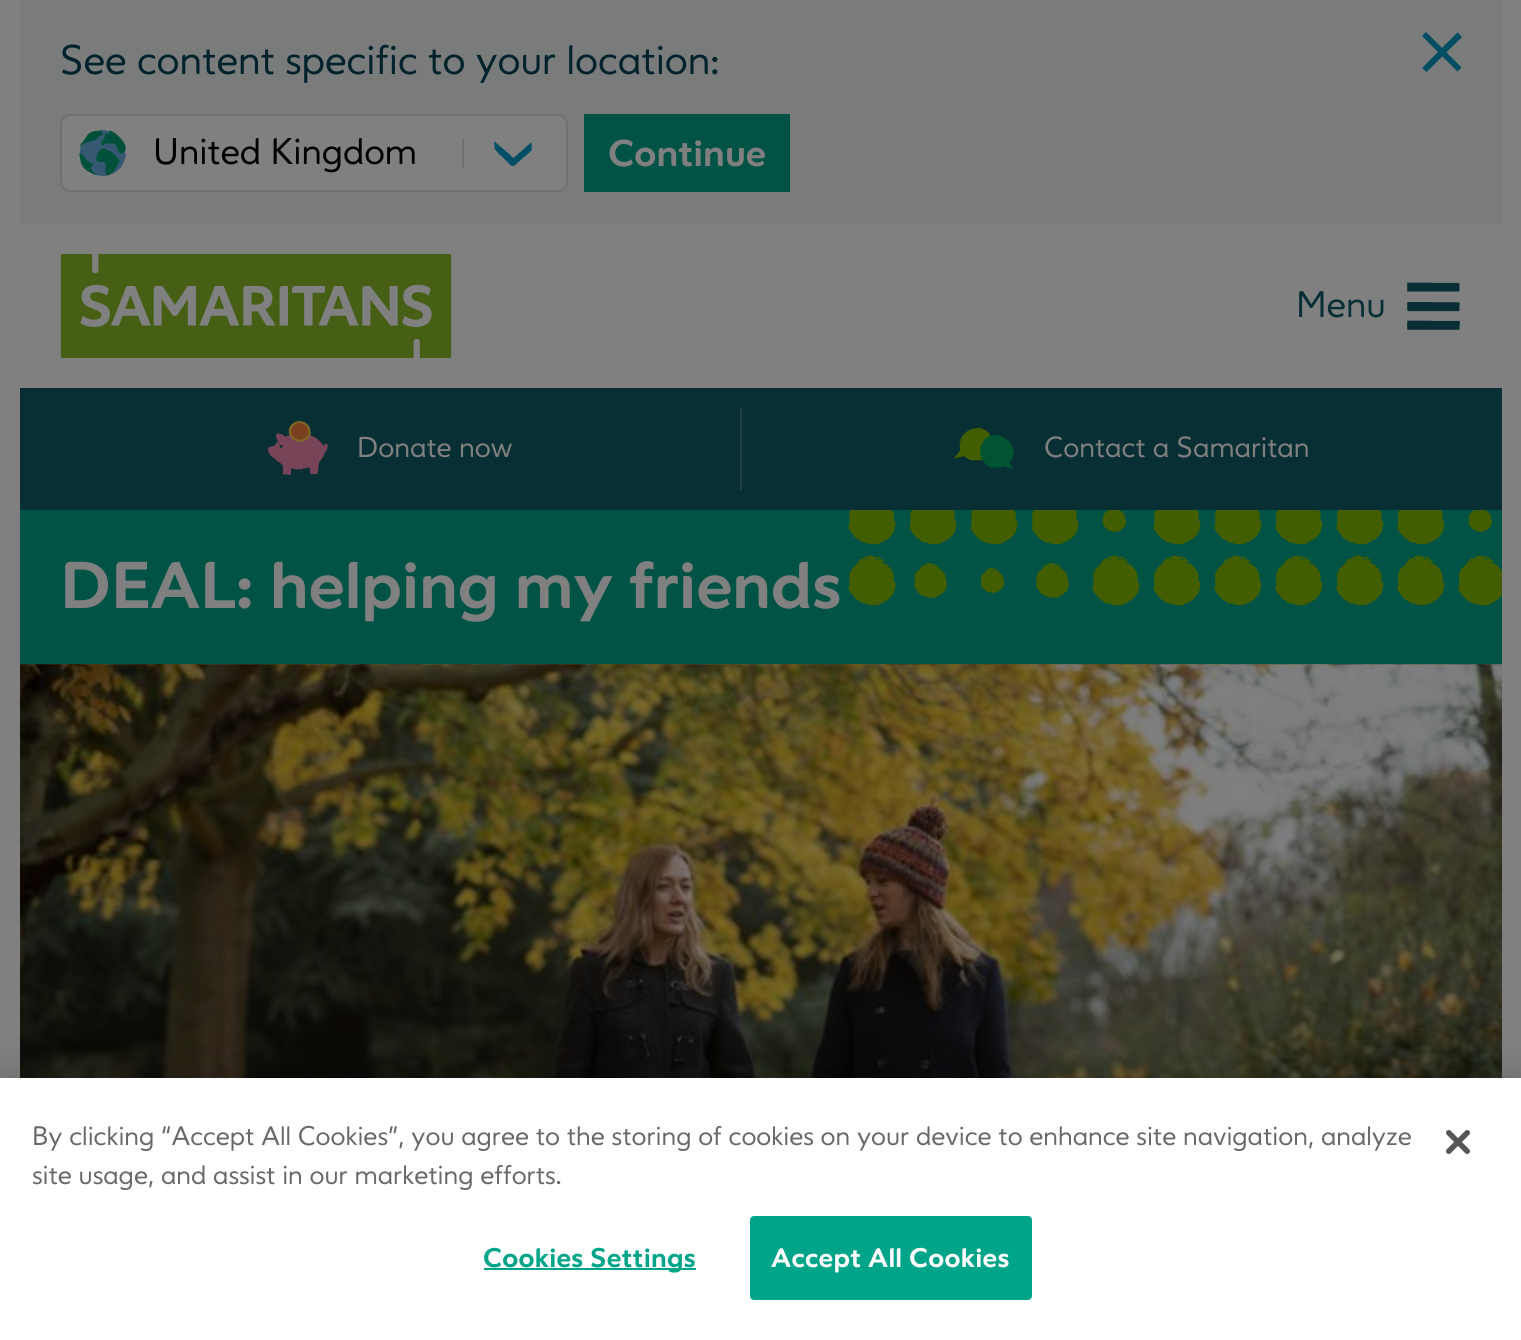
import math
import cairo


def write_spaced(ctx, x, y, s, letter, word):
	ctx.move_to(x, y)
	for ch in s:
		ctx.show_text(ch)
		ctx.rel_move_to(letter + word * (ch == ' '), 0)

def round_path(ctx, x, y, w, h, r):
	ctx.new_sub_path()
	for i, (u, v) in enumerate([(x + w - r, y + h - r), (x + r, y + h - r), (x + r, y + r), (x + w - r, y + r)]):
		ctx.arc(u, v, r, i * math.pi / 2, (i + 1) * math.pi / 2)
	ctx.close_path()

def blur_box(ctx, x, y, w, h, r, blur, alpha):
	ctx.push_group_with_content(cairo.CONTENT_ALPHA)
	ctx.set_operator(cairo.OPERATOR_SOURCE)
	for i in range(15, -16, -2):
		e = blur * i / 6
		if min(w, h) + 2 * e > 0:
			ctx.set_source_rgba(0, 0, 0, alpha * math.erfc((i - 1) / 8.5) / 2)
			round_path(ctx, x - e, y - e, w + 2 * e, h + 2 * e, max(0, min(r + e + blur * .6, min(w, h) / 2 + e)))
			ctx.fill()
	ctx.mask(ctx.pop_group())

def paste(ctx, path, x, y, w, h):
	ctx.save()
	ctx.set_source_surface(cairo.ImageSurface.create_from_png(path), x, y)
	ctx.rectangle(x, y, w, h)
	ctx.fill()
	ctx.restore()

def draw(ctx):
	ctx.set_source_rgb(0.478, 0.486, 0.486)
	ctx.paint()
	ctx.set_source_rgb(0.502, 0.502, 0.502)
	ctx.rectangle(0, 0, 20, 1078)
	ctx.fill()
	ctx.select_font_face('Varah')
	ctx.set_font_size(40)
	ctx.set_source_rgb(0, 0.133, 0.169)
	ctx.move_to(60, 74)
	ctx.show_text('See content specific to your location:')
	ctx.set_source_rgb(0, 0.306, 0.392)
	ctx.new_path()
	ctx.move_to(1426, 32)
	ctx.line_to(1461.5, 67.5)
	ctx.line_to(1457.5, 71.5)
	ctx.line_to(1422, 36)
	ctx.close_path()
	ctx.fill()
	ctx.new_path()
	ctx.move_to(1422, 68)
	ctx.line_to(1457.5, 32.5)
	ctx.line_to(1462, 37)
	ctx.line_to(1426.5, 72)
	ctx.close_path()
	ctx.fill()
	ctx.set_source_rgb(0.502, 0.502, 0.502)
	ctx.new_path()
	ctx.move_to(70, 114)
	ctx.line_to(142, 114)
	ctx.line_to(142, 192)
	ctx.line_to(70, 192)
	ctx.curve_to(64.5, 192, 60, 187.5, 60, 182)
	ctx.line_to(60, 124)
	ctx.curve_to(60, 118.5, 64.5, 114, 70, 114)
	ctx.close_path()
	ctx.fill()
	ctx.set_source_rgb(0.443, 0.443, 0.443)
	ctx.set_fill_rule(cairo.FILL_RULE_EVEN_ODD)
	ctx.new_path()
	ctx.move_to(70, 114)
	ctx.line_to(142, 114)
	ctx.line_to(142, 192)
	ctx.line_to(70, 192)
	ctx.curve_to(64, 192, 60, 188, 60, 182)
	ctx.line_to(60, 124)
	ctx.curve_to(60, 118, 64, 114, 70, 114)
	ctx.close_path()
	ctx.move_to(70, 116)
	ctx.line_to(142, 116)
	ctx.line_to(142, 190)
	ctx.line_to(70, 190)
	ctx.curve_to(66, 190, 62, 186, 62, 182)
	ctx.line_to(62, 124)
	ctx.curve_to(62, 120, 66, 116, 70, 116)
	ctx.close_path()
	ctx.fill()
	paste(ctx, 'media/1.png', 79, 130, 47, 46)
	ctx.set_source_rgb(0.502, 0.502, 0.502)
	ctx.new_path()
	ctx.move_to(142, 114)
	ctx.line_to(558, 114)
	ctx.curve_to(563.5, 114, 568, 118.5, 568, 124)
	ctx.line_to(568, 182)
	ctx.curve_to(568, 187.5, 563.5, 192, 558, 192)
	ctx.line_to(142, 192)
	ctx.close_path()
	ctx.fill()
	ctx.set_source_rgb(0.443, 0.443, 0.443)
	ctx.new_path()
	ctx.move_to(142, 114)
	ctx.line_to(558, 114)
	ctx.curve_to(564, 114, 568, 118, 568, 124)
	ctx.line_to(568, 182)
	ctx.curve_to(568, 188, 564, 192, 558, 192)
	ctx.line_to(142, 192)
	ctx.close_path()
	ctx.move_to(142, 116)
	ctx.line_to(558, 116)
	ctx.curve_to(562, 116, 566, 120, 566, 124)
	ctx.line_to(566, 182)
	ctx.curve_to(566, 186, 562, 190, 558, 190)
	ctx.line_to(142, 190)
	ctx.close_path()
	ctx.fill()
	ctx.set_font_size(36)
	ctx.set_source_rgb(0, 0, 0)
	ctx.move_to(153, 164)
	ctx.show_text('United Kingdom')
	ctx.set_source_rgb(0.443, 0.443, 0.443)
	ctx.rectangle(462, 138, 2, 30)
	ctx.fill()
	ctx.set_source_rgb(0.502, 0.502, 0.502)
	ctx.rectangle(563, 118, 1, 70)
	ctx.fill()
	paste(ctx, 'media/2.png', 494, 141, 38, 25)
	ctx.set_source_rgb(0, 0.325, 0.271)
	ctx.rectangle(584, 114, 206, 78)
	ctx.fill()
	ctx.select_font_face('Varah', cairo.FONT_SLANT_NORMAL, cairo.FONT_WEIGHT_BOLD)
	ctx.set_source_rgb(0.502, 0.502, 0.502)
	ctx.move_to(608, 166)
	ctx.show_text('Continue')
	ctx.rectangle(20, 224, 1482, 164)
	ctx.fill()
	paste(ctx, 'media/3.png', 60, 254, 392, 104)
	ctx.select_font_face('Varah')
	ctx.set_source_rgb(0.035, 0.184, 0.204)
	ctx.move_to(1296, 317)
	ctx.show_text('Menu')
	paste(ctx, 'media/4.png', 1407, 282, 53, 48)
	ctx.rectangle(20, 388, 1482, 122)
	ctx.fill()
	ctx.set_source_rgb(0.129, 0.247, 0.263)
	ctx.rectangle(740, 408, 2, 82)
	ctx.fill()
	paste(ctx, 'media/5.png', 268, 421, 60, 55)
	ctx.set_font_size(28)
	ctx.set_source_rgb(0.502, 0.502, 0.502)
	ctx.move_to(357, 457)
	ctx.show_text('Donate now')
	paste(ctx, 'media/6.png', 954, 427, 60, 43)
	ctx.move_to(1044, 457)
	ctx.show_text('Contact a Samaritan')
	ctx.rectangle(1502, 0, 19, 1078)
	ctx.fill()
	ctx.set_source_rgb(0, 0.325, 0.271)
	ctx.rectangle(20, 510, 1482, 154)
	ctx.fill()
	ctx.select_font_face('Varah', cairo.FONT_SLANT_NORMAL, cairo.FONT_WEIGHT_BOLD)
	ctx.set_font_size(64)
	ctx.set_source_rgb(0.502, 0.502, 0.502)
	ctx.move_to(60, 608)
	ctx.show_text('DEAL: helping my friends')
	paste(ctx, 'media/7.png', 20, 664, 1482, 414)
	paste(ctx, 'media/8.png', 848, 510, 654, 96)
	ctx.set_source_rgb(0, 0, 0)
	blur_box(ctx, 0, 1078, 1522, 262, 0, 18, 0.2)
	ctx.set_source_rgb(1, 1, 1)
	ctx.rectangle(0, 1078, 1521, 262)
	ctx.fill()
	ctx.select_font_face('Varah')
	ctx.set_font_size(26.02)
	ctx.set_source_rgb(0.412, 0.412, 0.412)
	ctx.move_to(32, 1145)
	ctx.show_text('By clicking “Accept All Cookies”, you agree to the storing of cookies on your device to enhance site navigation, analyze')
	ctx.move_to(32, 1184)
	ctx.show_text('site usage, and assist in our marketing efforts.')
	ctx.set_source_rgb(0, 0.647, 0.537)
	ctx.rectangle(484, 1268, 212, 2)
	ctx.fill()
	ctx.select_font_face('Varah', cairo.FONT_SLANT_NORMAL, cairo.FONT_WEIGHT_BOLD)
	write_spaced(ctx, 483, 1267, 'Cookies Settings', 0.25, 0)
	round_path(ctx, 751, 1217, 280, 82, 3)
	ctx.fill_preserve()
	ctx.stroke()
	ctx.set_source_rgb(1, 1, 1)
	write_spaced(ctx, 771, 1267, 'Accept All Cookies', 0.25, 0)
	paste(ctx, 'media/9.png', 1446, 1130, 24, 24)


surface = cairo.ImageSurface(cairo.FORMAT_RGB24, 1521, 1340)
ctx = cairo.Context(surface)
options = cairo.FontOptions()
options.set_hint_metrics(cairo.HINT_METRICS_OFF)
options.set_hint_style(cairo.HINT_STYLE_NONE)
ctx.set_font_options(options)
ctx.set_miter_limit(4)
draw(ctx)
surface.write_to_png('image.png')
